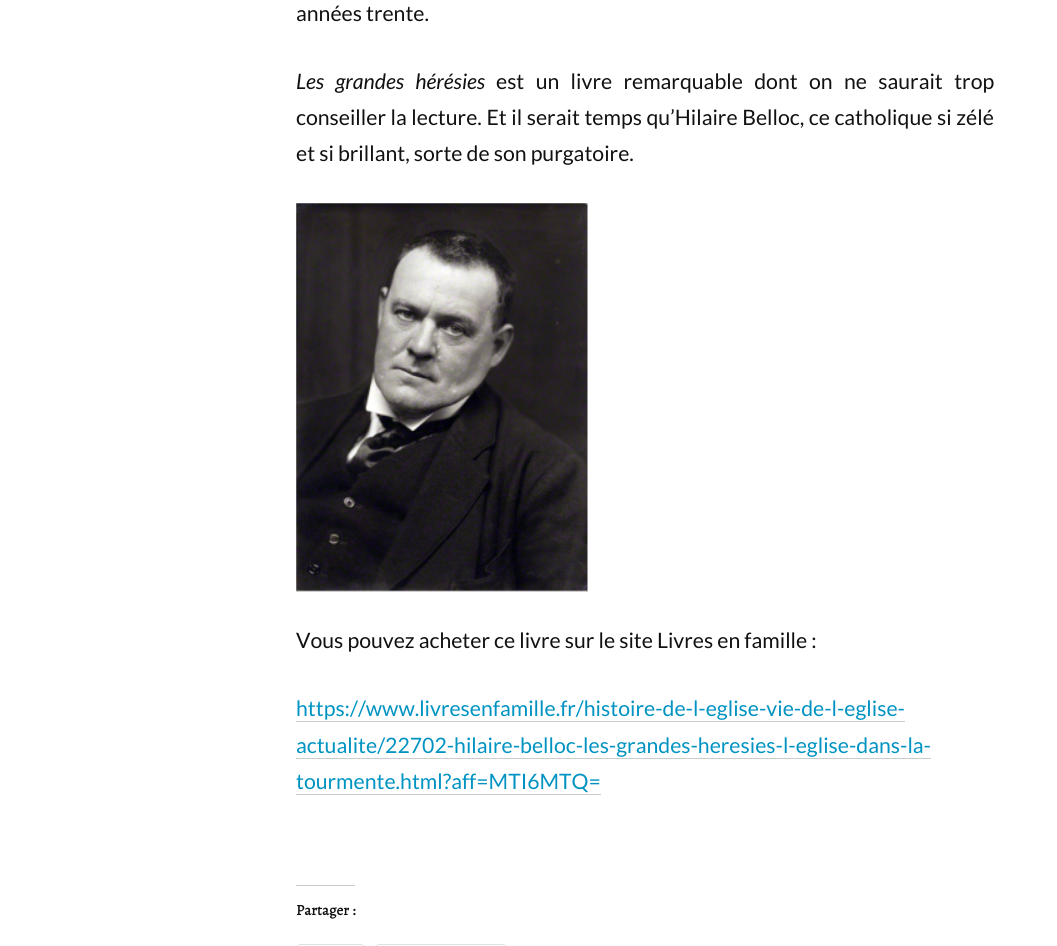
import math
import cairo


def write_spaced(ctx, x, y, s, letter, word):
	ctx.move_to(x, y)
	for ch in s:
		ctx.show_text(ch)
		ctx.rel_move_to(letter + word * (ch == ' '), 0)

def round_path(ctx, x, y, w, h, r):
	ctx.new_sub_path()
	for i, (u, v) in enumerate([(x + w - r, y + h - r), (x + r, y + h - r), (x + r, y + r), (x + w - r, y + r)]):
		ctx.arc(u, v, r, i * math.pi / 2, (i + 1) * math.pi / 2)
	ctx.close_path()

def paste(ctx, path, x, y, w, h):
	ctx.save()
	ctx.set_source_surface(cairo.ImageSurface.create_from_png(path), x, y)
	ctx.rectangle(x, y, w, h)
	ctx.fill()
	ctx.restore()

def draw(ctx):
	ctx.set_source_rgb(1, 1, 1)
	ctx.paint()
	ctx.select_font_face('Lato')
	ctx.set_font_size(21.25)
	ctx.set_source_rgb(0.067, 0.067, 0.067)
	ctx.move_to(296, 21)
	ctx.show_text('années trente.')
	ctx.select_font_face('Lato', cairo.FONT_SLANT_ITALIC)
	write_spaced(ctx, 296, 89, 'Les grandes hérésies', 0, 7.25)
	ctx.select_font_face('Lato')
	write_spaced(ctx, 496, 89, 'est un livre remarquable dont on ne saurait trop', 0, 7.25)
	write_spaced(ctx, 296, 125, 'conseiller la lecture. Et il serait temps qu’Hilaire Belloc, ce catholique si zélé', 0, 0.5)
	ctx.move_to(296, 161)
	ctx.show_text('et si brillant, sorte de son purgatoire.')
	ctx.set_source_rgb(0.8, 0.8, 0.8)
	ctx.rectangle(296, 591, 292, 1)
	ctx.fill()
	paste(ctx, 'media/1.png', 296, 203, 292, 388)
	ctx.set_source_rgb(0.067, 0.067, 0.067)
	ctx.move_to(296, 648)
	ctx.show_text('Vous pouvez acheter ce livre sur le site Livres en famille :')
	ctx.set_source_rgb(0, 0.576, 0.761)
	ctx.move_to(296, 716)
	ctx.show_text('https://www.livresenfamille.fr/histoire-de-l-eglise-vie-de-l-eglise-')
	ctx.set_source_rgb(0.8, 0.8, 0.8)
	ctx.rectangle(296, 721, 609, 1)
	ctx.fill()
	ctx.set_source_rgb(0, 0.576, 0.761)
	ctx.move_to(296, 753)
	ctx.show_text('actualite/22702-hilaire-belloc-les-grandes-heresies-l-eglise-dans-la-')
	ctx.set_source_rgb(0.8, 0.8, 0.8)
	ctx.rectangle(296, 758, 635, 1)
	ctx.fill()
	ctx.set_source_rgb(0, 0.576, 0.761)
	ctx.move_to(296, 789)
	ctx.show_text('tourmente.html?aff=MTI6MTQ=')
	ctx.set_source_rgb(0.8, 0.8, 0.8)
	ctx.rectangle(296, 794, 305, 1)
	ctx.fill()
	ctx.rectangle(296, 885, 59, 1)
	ctx.fill()
	ctx.select_font_face('Alegreya', cairo.FONT_SLANT_NORMAL, cairo.FONT_WEIGHT_BOLD)
	ctx.set_font_size(15)
	ctx.set_source_rgb(0.067, 0.067, 0.067)
	ctx.move_to(296, 915)
	ctx.show_text('Partager :')
	round_path(ctx, 295.5, 944.5, 70, 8, 5.5)
	ctx.set_source_rgb(0.878, 0.878, 0.878)
	ctx.set_line_width(1)
	ctx.stroke()
	ctx.set_source_rgb(1, 1, 1)
	round_path(ctx, 296, 945, 69, 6, 5)
	ctx.fill()
	round_path(ctx, 374.5, 944.5, 133, 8, 5.5)
	ctx.set_source_rgb(0.878, 0.878, 0.878)
	ctx.stroke()
	ctx.set_source_rgb(1, 1, 1)
	round_path(ctx, 375, 945, 131, 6, 5)
	ctx.fill()


surface = cairo.ImageSurface(cairo.FORMAT_RGB24, 1057, 946)
ctx = cairo.Context(surface)
options = cairo.FontOptions()
options.set_hint_metrics(cairo.HINT_METRICS_OFF)
options.set_hint_style(cairo.HINT_STYLE_NONE)
ctx.set_font_options(options)
ctx.set_miter_limit(4)
draw(ctx)
surface.write_to_png('image.png')
